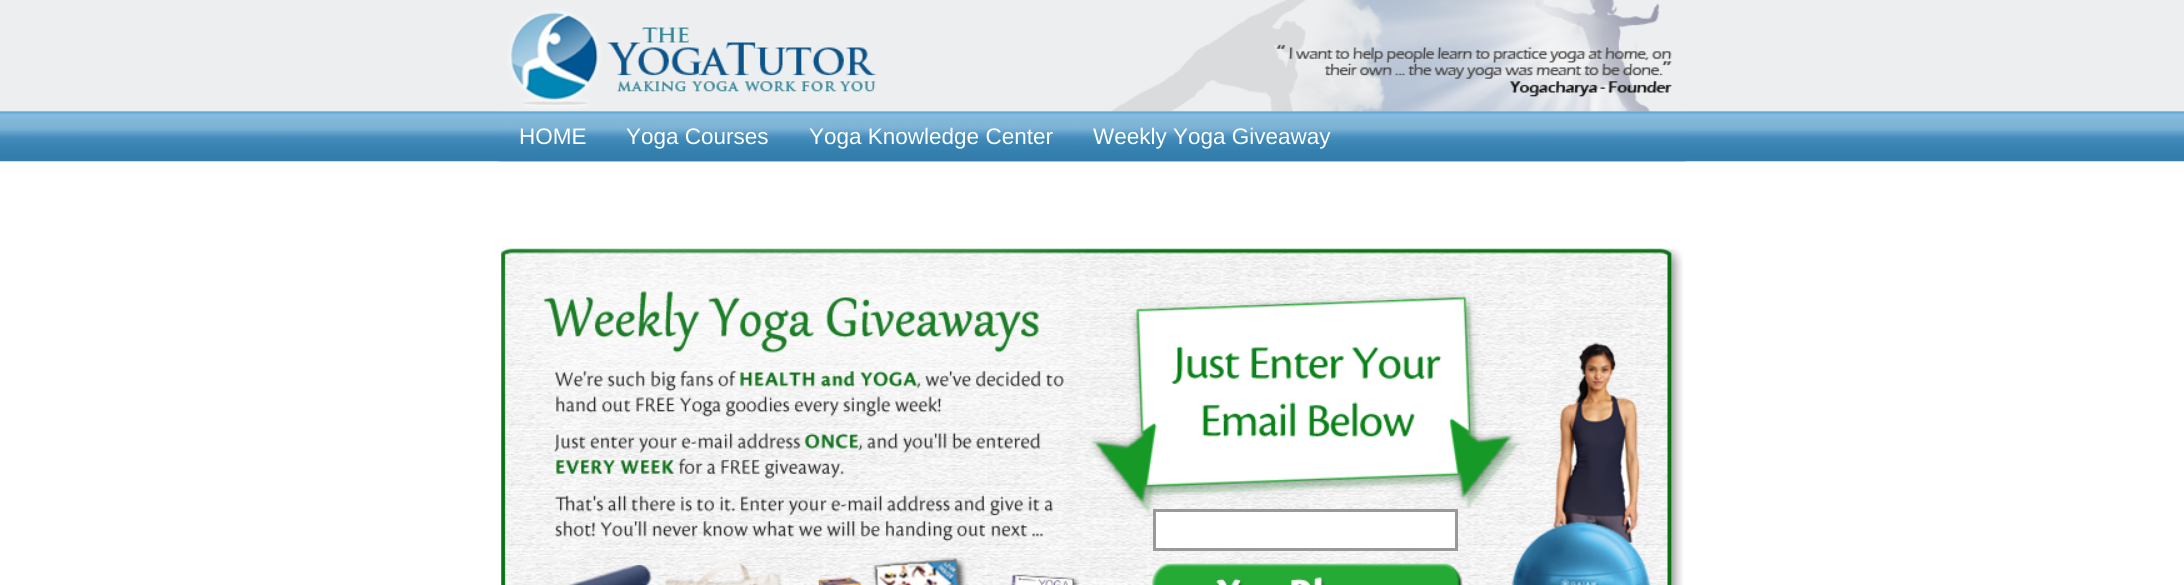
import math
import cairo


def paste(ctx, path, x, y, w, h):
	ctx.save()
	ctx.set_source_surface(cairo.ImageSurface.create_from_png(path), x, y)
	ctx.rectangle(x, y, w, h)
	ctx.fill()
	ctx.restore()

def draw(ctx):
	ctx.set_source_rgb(1, 1, 1)
	ctx.paint()
	paste(ctx, 'media/1.png', 0, 0, 2184, 162)
	paste(ctx, 'media/3.png', 498, 111, 1189, 51)
	paste(ctx, 'media/2.png', 498, 0, 1189, 112)
	ctx.select_font_face('Liberation Sans')
	ctx.set_font_size(22.5)
	ctx.set_source_rgb(1, 1, 1)
	for x, y, s in [
		(519, 144, 'HOME'),
		(626, 144, 'Yoga Courses'),
		(809, 144, 'Yoga Knowledge Center'),
		(1093, 144, 'Weekly Yoga Giveaway'),
	]:
		ctx.move_to(x, y)
		ctx.show_text(s)
	paste(ctx, 'media/4.png', 501, 248, 1182, 337)
	ctx.rectangle(1154.5, 510.5, 302, 39)
	ctx.fill_preserve()
	ctx.set_source_rgb(0.6, 0.6, 0.6)
	ctx.set_line_width(3)
	ctx.stroke()
	paste(ctx, 'media/5.png', 1152, 563, 311, 22)


surface = cairo.ImageSurface(cairo.FORMAT_RGB24, 2184, 585)
ctx = cairo.Context(surface)
options = cairo.FontOptions()
options.set_hint_metrics(cairo.HINT_METRICS_OFF)
options.set_hint_style(cairo.HINT_STYLE_NONE)
ctx.set_font_options(options)
ctx.set_miter_limit(4)
draw(ctx)
surface.write_to_png('image.png')
